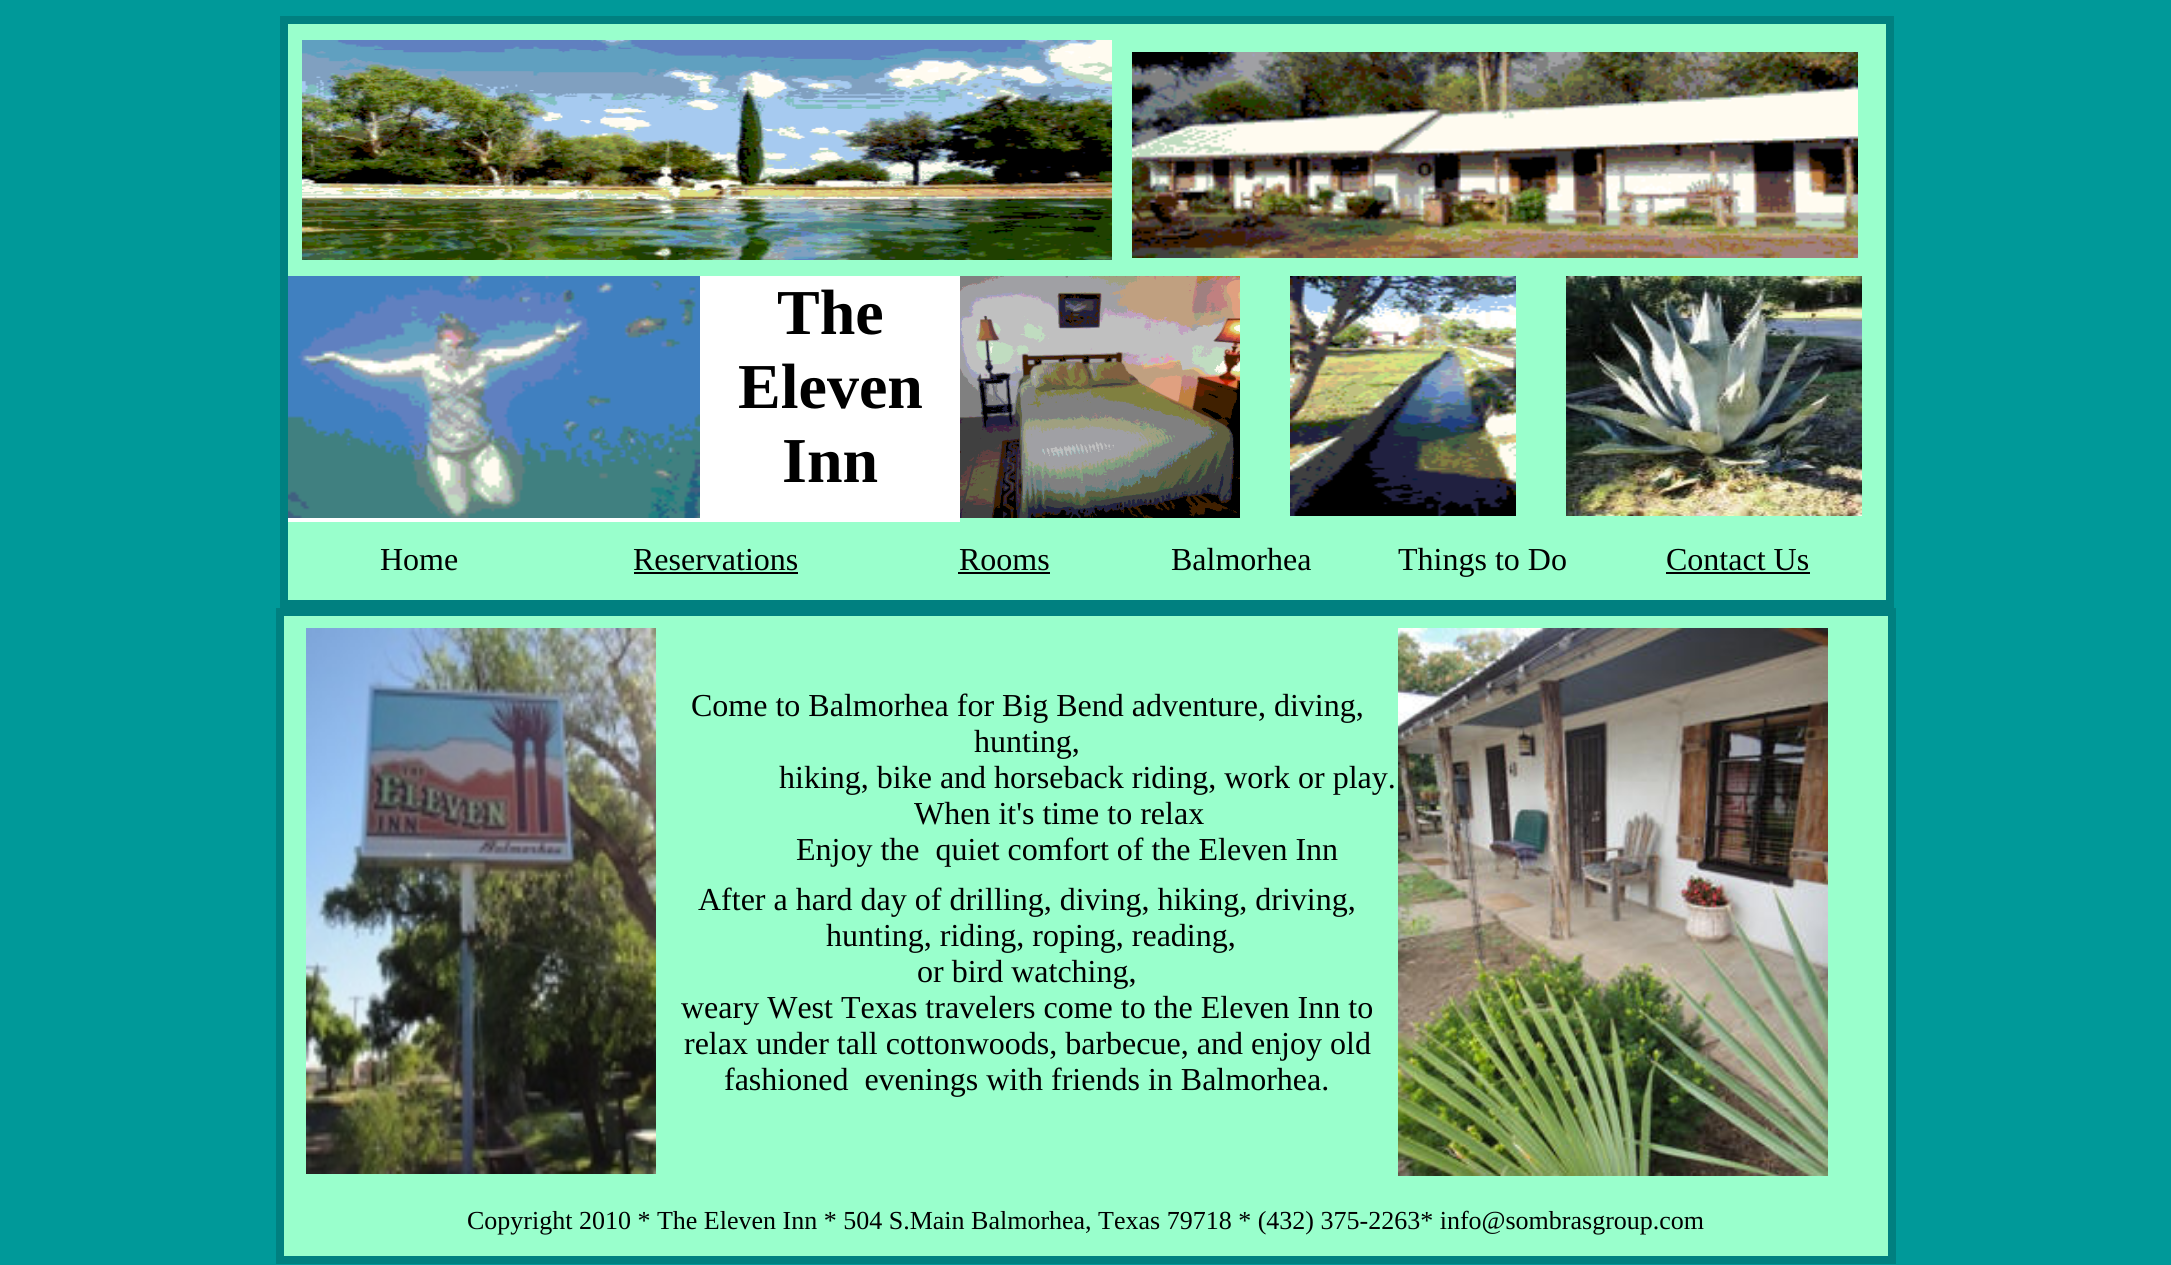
import math
import cairo


def paste(ctx, path, x, y, w, h):
	ctx.save()
	ctx.set_source_surface(cairo.ImageSurface.create_from_png(path), x, y)
	ctx.rectangle(x, y, w, h)
	ctx.fill()
	ctx.restore()

def draw(ctx):
	ctx.set_source_rgb(0, 0.6, 0.6)
	ctx.paint()
	ctx.set_source_rgb(0.6, 1, 0.8)
	ctx.rectangle(284, 20, 1606, 584)
	ctx.fill_preserve()
	ctx.set_source_rgb(0, 0.502, 0.502)
	ctx.set_line_width(8)
	ctx.stroke()
	paste(ctx, 'media/1.png', 302, 40, 810, 220)
	paste(ctx, 'media/2.png', 1132, 52, 726, 206)
	ctx.set_source_rgb(1, 1, 1)
	ctx.rectangle(288, 276, 672, 246)
	ctx.fill()
	paste(ctx, 'media/3.png', 288, 276, 412, 242)
	ctx.select_font_face('Liberation Serif', cairo.FONT_SLANT_NORMAL, cairo.FONT_WEIGHT_BOLD)
	ctx.set_font_size(64)
	ctx.set_source_rgb(0, 0, 0)
	for x, y, s in [
		(777, 334, 'The'),
		(738, 408, 'Eleven'),
		(782, 482, 'Inn'),
	]:
		ctx.move_to(x, y)
		ctx.show_text(s)
	paste(ctx, 'media/4.png', 960, 276, 280, 242)
	paste(ctx, 'media/5.png', 1290, 276, 226, 240)
	paste(ctx, 'media/6.png', 1566, 276, 296, 240)
	ctx.select_font_face('Liberation Serif')
	ctx.set_font_size(32)
	ctx.move_to(380, 570)
	ctx.show_text('Home')
	ctx.move_to(633, 570)
	ctx.show_text('Reservations')
	ctx.rectangle(634, 572, 164, 2)
	ctx.fill()
	ctx.move_to(959, 570)
	ctx.show_text('Rooms')
	ctx.rectangle(958, 572, 92, 2)
	ctx.fill()
	for x, y, s in [
		(1171, 570, 'Balmorhea'),
		(1398, 570, 'Things to Do'),
		(1666, 570, 'Contact Us'),
	]:
		ctx.move_to(x, y)
		ctx.show_text(s)
	ctx.rectangle(1666, 572, 144, 2)
	ctx.fill()
	ctx.set_source_rgb(0.6, 1, 0.8)
	ctx.rectangle(280, 612, 1612, 648)
	ctx.fill_preserve()
	ctx.set_source_rgb(0, 0.502, 0.502)
	ctx.stroke()
	paste(ctx, 'media/7.png', 306, 628, 350, 546)
	ctx.set_source_rgb(0, 0, 0)
	for x, y, s in [
		(691, 716, 'Come to Balmorhea for Big Bend adventure, diving,'),
		(974, 752, 'hunting,'),
		(779, 788, 'hiking, bike and horseback riding, work or play.'),
		(914, 824, 'When it\'s time to relax'),
		(796, 860, 'Enjoy the  quiet comfort of the Eleven Inn'),
	]:
		ctx.move_to(x, y)
		ctx.show_text(s)
	paste(ctx, 'media/8.png', 1398, 628, 430, 548)
	for x, y, s in [
		(698, 910, 'After a hard day of drilling, diving, hiking, driving,'),
		(826, 946, 'hunting, riding, roping, reading,'),
		(917, 982, 'or bird watching,'),
		(681, 1018, 'weary West Texas travelers come to the Eleven Inn to'),
		(684, 1054, 'relax under tall cottonwoods, barbecue, and enjoy old'),
		(724, 1090, 'fashioned  evenings with friends in Balmorhea.'),
	]:
		ctx.move_to(x, y)
		ctx.show_text(s)
	ctx.set_font_size(26)
	ctx.move_to(467, 1229)
	ctx.show_text('Copyright 2010 * The Eleven Inn * 504 S.Main Balmorhea, Texas 79718 * (432) 375-2263* info@sombrasgroup.com')


surface = cairo.ImageSurface(cairo.FORMAT_RGB24, 2171, 1265)
ctx = cairo.Context(surface)
options = cairo.FontOptions()
options.set_hint_metrics(cairo.HINT_METRICS_OFF)
options.set_hint_style(cairo.HINT_STYLE_NONE)
ctx.set_font_options(options)
ctx.set_miter_limit(4)
draw(ctx)
surface.write_to_png('image.png')
